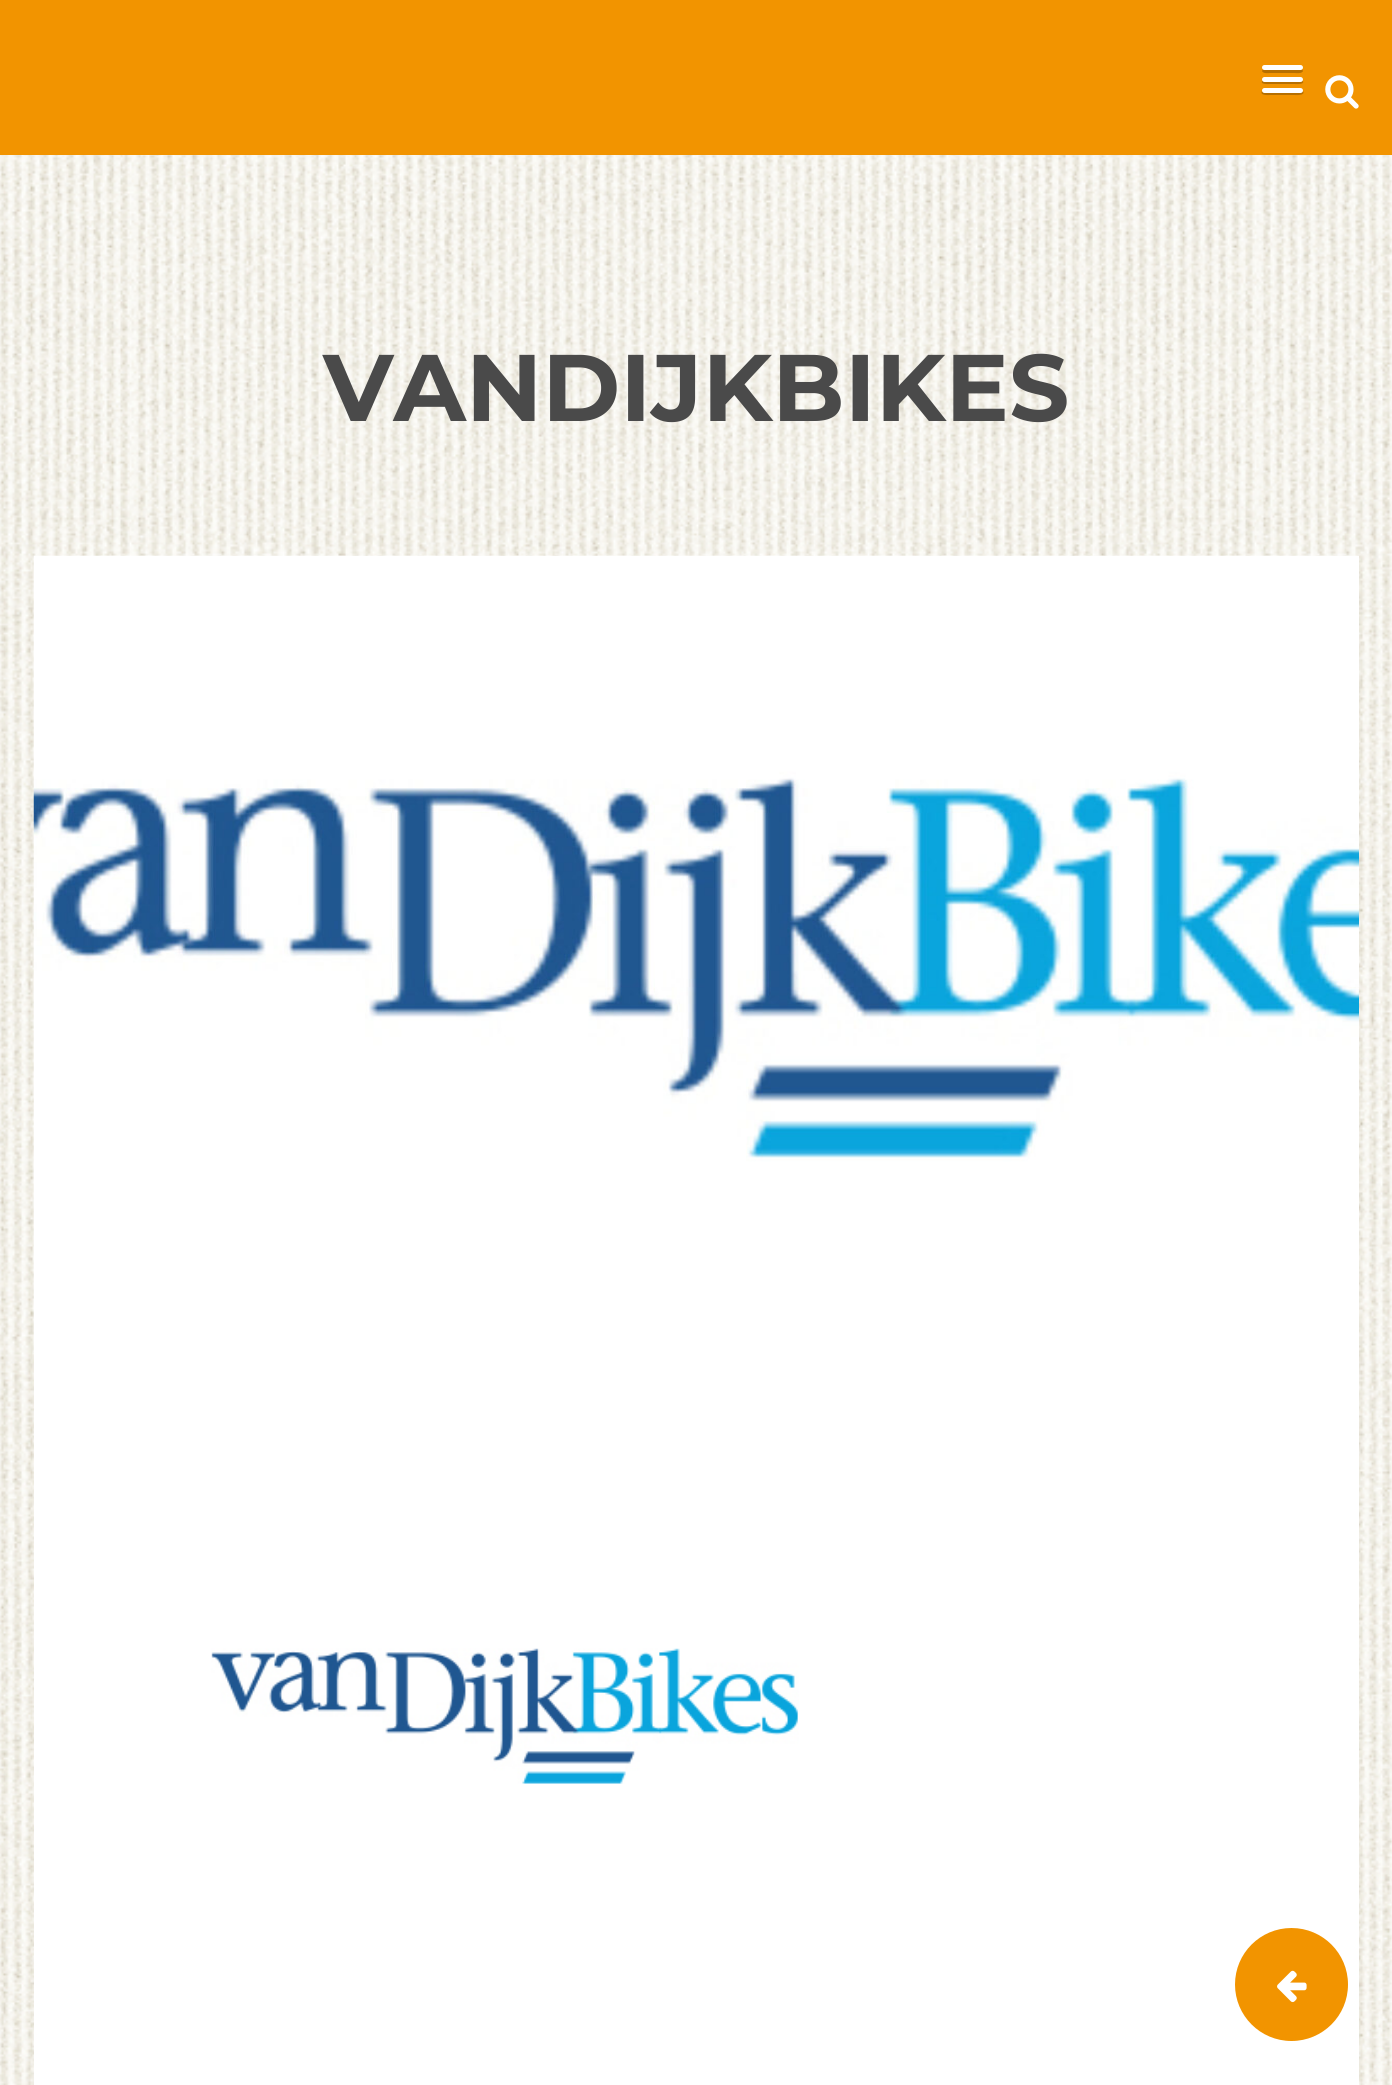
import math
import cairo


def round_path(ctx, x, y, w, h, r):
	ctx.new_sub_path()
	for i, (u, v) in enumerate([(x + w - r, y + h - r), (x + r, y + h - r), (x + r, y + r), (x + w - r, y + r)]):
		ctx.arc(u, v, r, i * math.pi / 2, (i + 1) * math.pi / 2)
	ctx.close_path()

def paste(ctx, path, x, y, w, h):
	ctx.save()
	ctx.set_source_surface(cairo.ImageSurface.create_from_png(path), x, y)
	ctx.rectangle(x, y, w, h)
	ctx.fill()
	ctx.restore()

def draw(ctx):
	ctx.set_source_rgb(1, 1, 1)
	ctx.paint()
	paste(ctx, 'media/1.png', 0, 155, 1392, 1930)
	ctx.set_source_rgb(0.949, 0.58, 0)
	ctx.rectangle(0, 0, 1392, 155)
	ctx.fill()
	ctx.set_source_rgb(0.714, 0.435, 0)
	ctx.new_path()
	ctx.move_to(1263, 69)
	ctx.line_to(1262, 71)
	ctx.curve_to(1263, 74, 1269, 73, 1270, 73)
	ctx.line_to(1294, 73)
	ctx.curve_to(1296, 73, 1302, 74, 1303, 71)
	ctx.line_to(1302, 69)
	ctx.line_to(1301, 70)
	ctx.line_to(1264, 70)
	ctx.close_path()
	ctx.fill()
	ctx.set_source_rgb(1, 1, 1)
	round_path(ctx, 1262, 65, 41, 5, 2.5)
	ctx.fill()
	ctx.set_source_rgb(0.714, 0.435, 0)
	ctx.new_path()
	ctx.move_to(1263, 80)
	ctx.curve_to(1258, 85, 1270, 84, 1270, 84)
	ctx.line_to(1294, 84)
	ctx.curve_to(1295, 84, 1307, 85, 1302, 80)
	ctx.line_to(1301, 81)
	ctx.line_to(1264, 81)
	ctx.close_path()
	ctx.fill()
	ctx.set_source_rgb(1, 1, 1)
	round_path(ctx, 1262, 77, 41, 5, 2.5)
	ctx.fill()
	ctx.set_source_rgb(0.714, 0.435, 0)
	ctx.new_path()
	ctx.move_to(1262, 91)
	ctx.curve_to(1259, 96, 1270, 95, 1270, 95)
	ctx.line_to(1294, 95)
	ctx.curve_to(1295, 95, 1306, 96, 1303, 91)
	ctx.curve_to(1302, 92, 1301, 92, 1300, 92)
	ctx.line_to(1264, 92)
	ctx.curve_to(1264, 92, 1263, 92, 1262, 91)
	ctx.close_path()
	ctx.fill()
	ctx.set_source_rgb(1, 1, 1)
	round_path(ctx, 1262, 88, 41, 5, 2.5)
	ctx.fill()
	paste(ctx, 'media/2.png', 1325, 75, 34, 34)
	ctx.select_font_face('Montserrat', cairo.FONT_SLANT_NORMAL, cairo.FONT_WEIGHT_BOLD)
	ctx.set_font_size(94.5)
	ctx.set_source_rgb(0.29, 0.29, 0.29)
	ctx.move_to(323, 421)
	ctx.show_text('VANDIJKBIKES')
	ctx.set_source_rgb(1, 1, 1)
	ctx.rectangle(34, 1352, 1325, 733)
	ctx.fill()
	paste(ctx, 'media/3.png', 33, 555, 1326, 797)
	paste(ctx, 'media/4.png', 211, 1648, 588, 136)
	ctx.set_source_rgb(0.949, 0.58, 0)
	ctx.arc(1291.5, 1984.5, 56.5, 0, 2 * math.pi)
	ctx.fill()
	paste(ctx, 'media/5.png', 1277, 1970, 30, 33)


surface = cairo.ImageSurface(cairo.FORMAT_RGB24, 1392, 2085)
ctx = cairo.Context(surface)
options = cairo.FontOptions()
options.set_hint_metrics(cairo.HINT_METRICS_OFF)
options.set_hint_style(cairo.HINT_STYLE_NONE)
ctx.set_font_options(options)
ctx.set_miter_limit(4)
draw(ctx)
surface.write_to_png('image.png')
